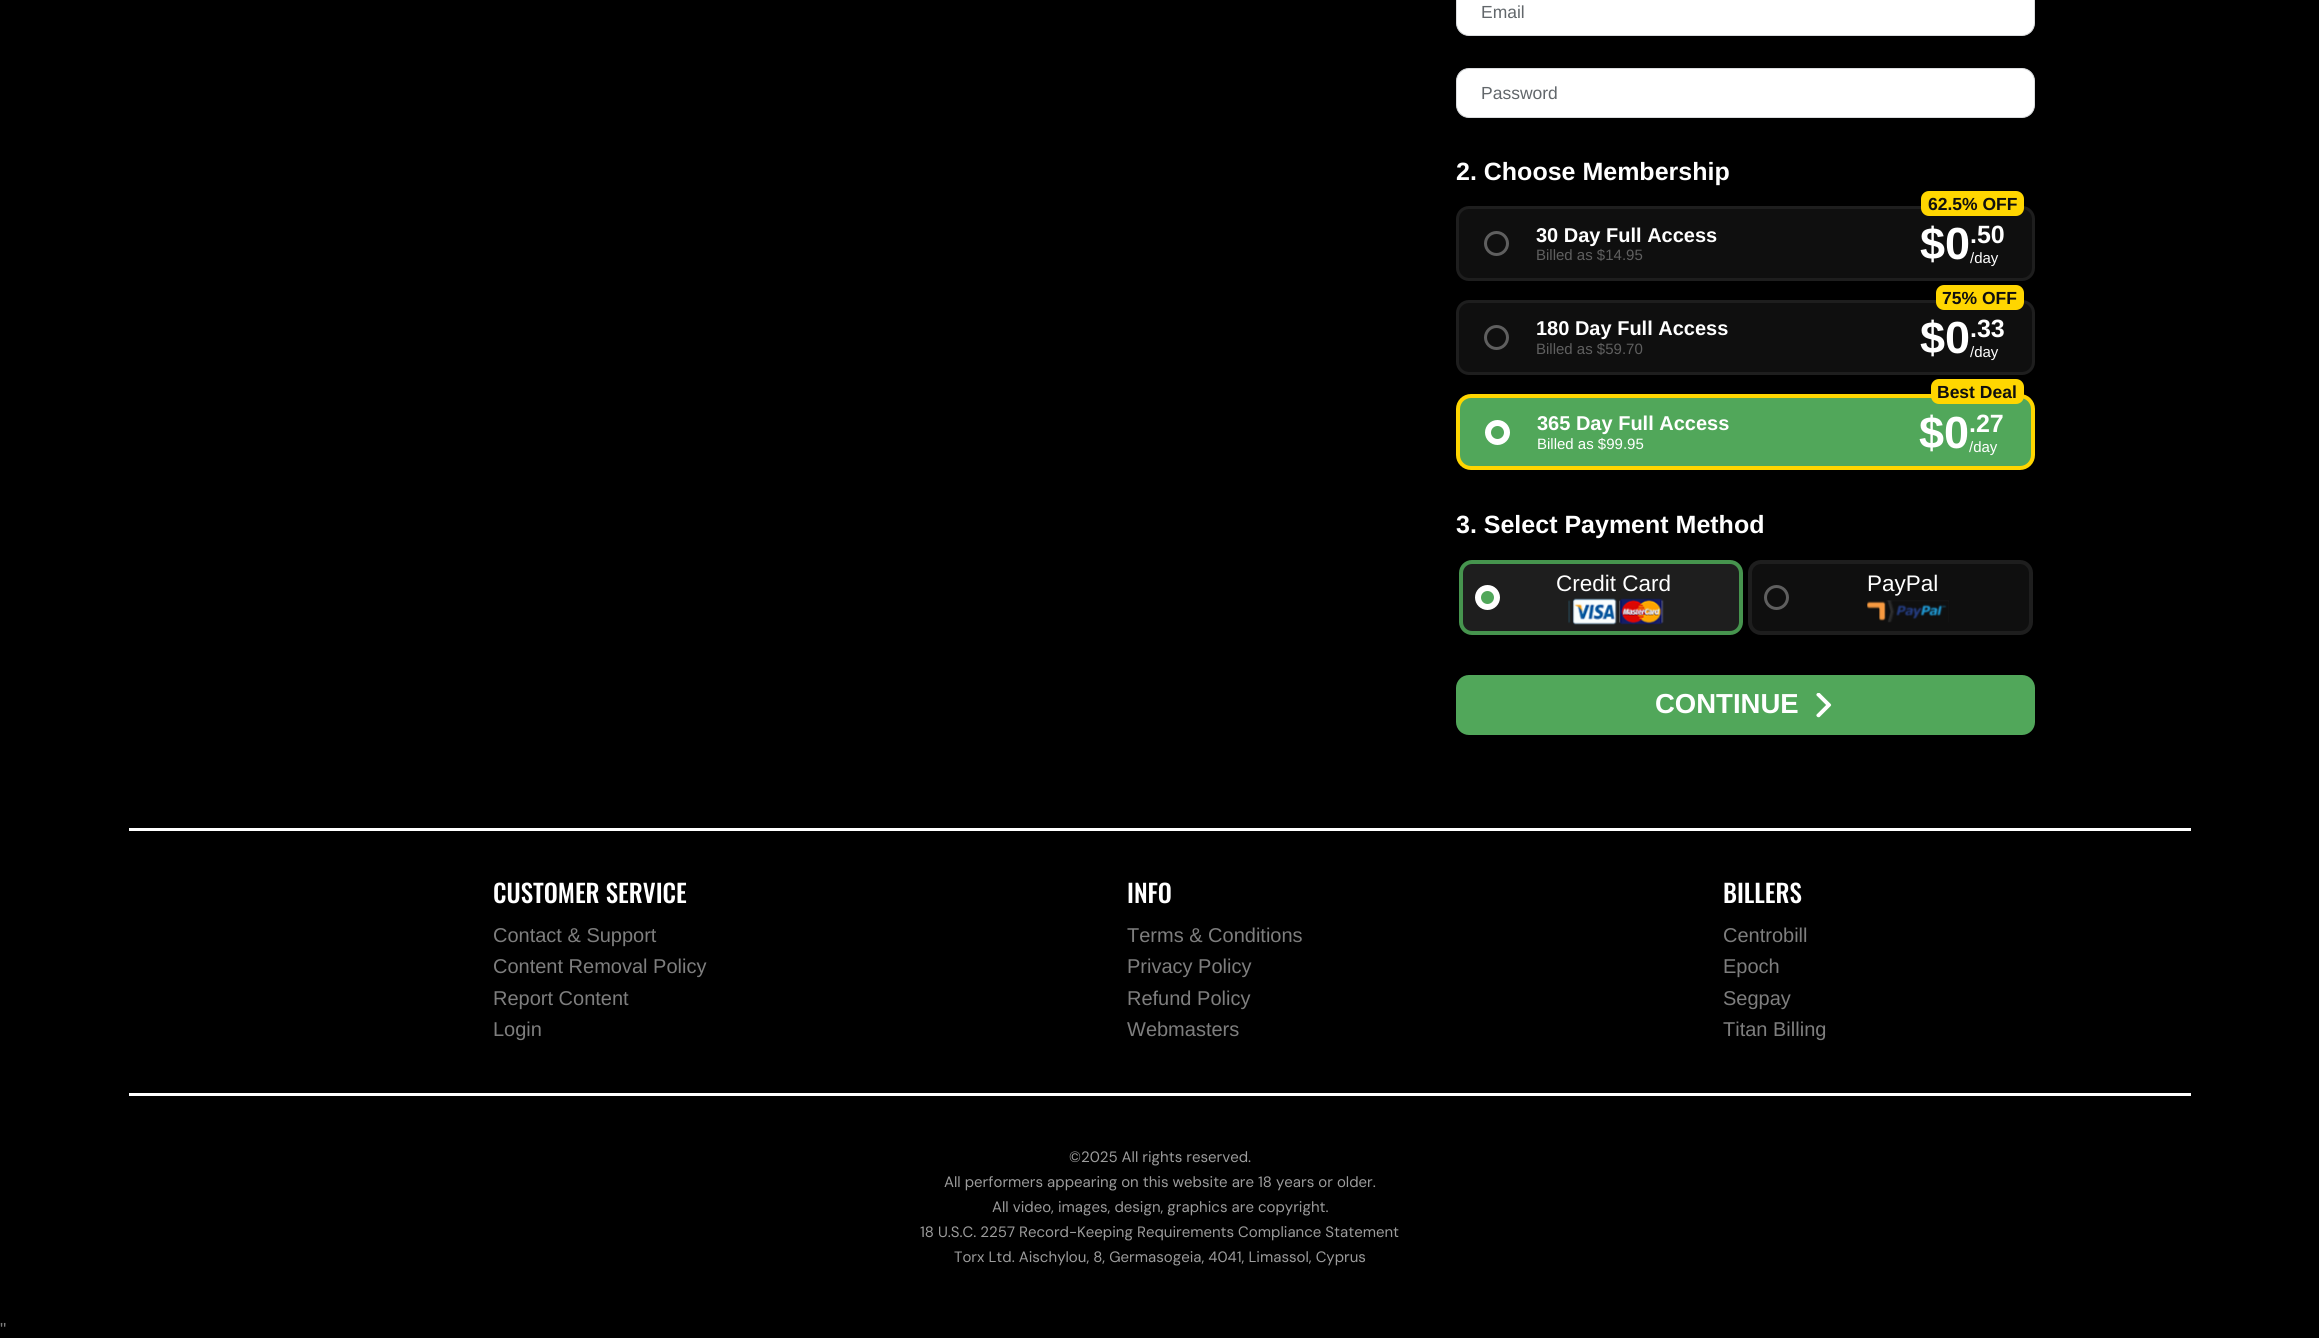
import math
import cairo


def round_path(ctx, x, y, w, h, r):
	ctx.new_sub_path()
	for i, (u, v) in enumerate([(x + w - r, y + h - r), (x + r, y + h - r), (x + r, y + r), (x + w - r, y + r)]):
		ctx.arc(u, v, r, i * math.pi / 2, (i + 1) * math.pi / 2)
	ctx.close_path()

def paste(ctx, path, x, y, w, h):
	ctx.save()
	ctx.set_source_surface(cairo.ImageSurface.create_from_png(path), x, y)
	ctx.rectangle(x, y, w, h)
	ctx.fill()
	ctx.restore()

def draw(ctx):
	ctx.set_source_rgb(0, 0, 0)
	ctx.paint()
	ctx.set_source_rgb(1, 1, 1)
	round_path(ctx, 1456.5, -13.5, 578, 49, 12.5)
	ctx.fill_preserve()
	ctx.set_source_rgb(0.859, 0.867, 0.875)
	ctx.set_line_width(1)
	ctx.stroke()
	ctx.select_font_face('Liberation Sans')
	ctx.set_font_size(17.5)
	ctx.set_source_rgb(0.384, 0.404, 0.42)
	ctx.move_to(1481, 18)
	ctx.show_text('Email')
	ctx.set_source_rgb(1, 1, 1)
	round_path(ctx, 1456.5, 68.5, 578, 49, 12.5)
	ctx.fill_preserve()
	ctx.set_source_rgb(0.859, 0.867, 0.875)
	ctx.stroke()
	ctx.set_source_rgb(0.384, 0.404, 0.42)
	ctx.move_to(1481, 99)
	ctx.show_text('Password')
	ctx.select_font_face('Liberation Sans', cairo.FONT_SLANT_NORMAL, cairo.FONT_WEIGHT_BOLD)
	ctx.set_font_size(25)
	ctx.set_source_rgb(1, 1, 1)
	ctx.move_to(1456, 180)
	ctx.show_text('2. Choose Membership')
	ctx.set_source_rgb(0.059, 0.059, 0.059)
	round_path(ctx, 1457.5, 207.5, 576, 72, 11.5)
	ctx.fill_preserve()
	ctx.set_source_rgb(0.118, 0.118, 0.118)
	ctx.set_line_width(3)
	ctx.stroke()
	ctx.set_source_rgb(1, 0.839, 0)
	round_path(ctx, 1921, 191, 103, 25, 8)
	ctx.fill()
	ctx.set_font_size(17.5)
	ctx.set_source_rgb(0.059, 0.059, 0.059)
	ctx.move_to(1928, 210)
	ctx.show_text('62.5% OFF')
	ctx.new_path()
	ctx.arc(1496.5, 243.5, 11, 0, 2 * math.pi)
	ctx.set_source_rgb(0.373, 0.373, 0.373)
	ctx.stroke()
	ctx.set_font_size(20)
	ctx.set_source_rgb(1, 1, 1)
	ctx.move_to(1536, 242)
	ctx.show_text('30 Day Full Access')
	ctx.select_font_face('Liberation Sans')
	ctx.set_font_size(15)
	ctx.set_source_rgb(0.373, 0.373, 0.373)
	ctx.move_to(1536, 260)
	ctx.show_text('Billed as $14.95')
	ctx.select_font_face('Liberation Sans', cairo.FONT_SLANT_NORMAL, cairo.FONT_WEIGHT_BOLD)
	ctx.set_font_size(45)
	ctx.set_source_rgb(1, 1, 1)
	ctx.move_to(1920, 259)
	ctx.show_text('$0')
	ctx.set_font_size(25)
	ctx.move_to(1970, 243)
	ctx.show_text('.50')
	ctx.select_font_face('Liberation Sans')
	ctx.set_font_size(15)
	ctx.move_to(1970, 263)
	ctx.show_text('/day')
	ctx.set_source_rgb(0.059, 0.059, 0.059)
	round_path(ctx, 1457.5, 301.5, 576, 72, 11.5)
	ctx.fill_preserve()
	ctx.set_source_rgb(0.118, 0.118, 0.118)
	ctx.stroke()
	ctx.set_source_rgb(1, 0.839, 0)
	round_path(ctx, 1936, 285, 88, 25, 8)
	ctx.fill()
	ctx.select_font_face('Liberation Sans', cairo.FONT_SLANT_NORMAL, cairo.FONT_WEIGHT_BOLD)
	ctx.set_font_size(17.5)
	ctx.set_source_rgb(0.059, 0.059, 0.059)
	ctx.move_to(1942, 304)
	ctx.show_text('75% OFF')
	ctx.new_path()
	ctx.arc(1496.5, 337.5, 11, 0, 2 * math.pi)
	ctx.set_source_rgb(0.373, 0.373, 0.373)
	ctx.stroke()
	ctx.set_font_size(20)
	ctx.set_source_rgb(1, 1, 1)
	ctx.move_to(1536, 335)
	ctx.show_text('180 Day Full Access')
	ctx.select_font_face('Liberation Sans')
	ctx.set_font_size(15)
	ctx.set_source_rgb(0.373, 0.373, 0.373)
	ctx.move_to(1536, 354)
	ctx.show_text('Billed as $59.70')
	ctx.select_font_face('Liberation Sans', cairo.FONT_SLANT_NORMAL, cairo.FONT_WEIGHT_BOLD)
	ctx.set_font_size(45)
	ctx.set_source_rgb(1, 1, 1)
	ctx.move_to(1920, 353)
	ctx.show_text('$0')
	ctx.set_font_size(25)
	ctx.move_to(1970, 337)
	ctx.show_text('.33')
	ctx.select_font_face('Liberation Sans')
	ctx.set_font_size(15)
	ctx.move_to(1970, 357)
	ctx.show_text('/day')
	ctx.set_source_rgb(0.318, 0.655, 0.353)
	round_path(ctx, 1458, 396, 575, 72, 13)
	ctx.fill_preserve()
	ctx.set_source_rgb(1, 0.839, 0)
	ctx.set_line_width(4)
	ctx.stroke()
	round_path(ctx, 1931, 379, 93, 25, 8)
	ctx.fill()
	ctx.select_font_face('Liberation Sans', cairo.FONT_SLANT_NORMAL, cairo.FONT_WEIGHT_BOLD)
	ctx.set_font_size(17.5)
	ctx.set_source_rgb(0.059, 0.059, 0.059)
	ctx.move_to(1937, 398)
	ctx.show_text('Best Deal')
	ctx.set_source_rgb(1, 1, 1)
	ctx.new_path()
	ctx.arc(1497.5, 432.5, 12.5, 0, 2 * math.pi)
	ctx.fill()
	ctx.set_font_size(20)
	ctx.move_to(1537, 430)
	ctx.show_text('365 Day Full Access')
	ctx.select_font_face('Liberation Sans')
	ctx.set_font_size(15)
	ctx.move_to(1537, 449)
	ctx.show_text('Billed as $99.95')
	ctx.select_font_face('Liberation Sans', cairo.FONT_SLANT_NORMAL, cairo.FONT_WEIGHT_BOLD)
	ctx.set_font_size(45)
	ctx.move_to(1919, 448)
	ctx.show_text('$0')
	ctx.set_font_size(25)
	ctx.move_to(1969, 432)
	ctx.show_text('.27')
	ctx.select_font_face('Liberation Sans')
	ctx.set_font_size(15)
	ctx.move_to(1969, 452)
	ctx.show_text('/day')
	ctx.set_source_rgb(0.318, 0.655, 0.353)
	ctx.new_path()
	ctx.arc(1497.5, 432.5, 6.5, 0, 2 * math.pi)
	ctx.fill()
	ctx.select_font_face('Liberation Sans', cairo.FONT_SLANT_NORMAL, cairo.FONT_WEIGHT_BOLD)
	ctx.set_font_size(25)
	ctx.set_source_rgb(1, 1, 1)
	ctx.move_to(1456, 533)
	ctx.show_text('3. Select Payment Method')
	ctx.set_source_rgb(0.118, 0.118, 0.118)
	round_path(ctx, 1461, 562, 280, 71, 11)
	ctx.fill_preserve()
	ctx.set_source_rgb(0.275, 0.58, 0.306)
	ctx.stroke()
	ctx.select_font_face('Liberation Sans')
	ctx.set_font_size(22.5)
	ctx.set_source_rgb(1, 1, 1)
	ctx.move_to(1556, 591)
	ctx.show_text('Credit Card')
	ctx.new_path()
	ctx.arc(1487.5, 597.5, 12.5, 0, 2 * math.pi)
	ctx.fill()
	ctx.set_source_rgb(0.318, 0.655, 0.353)
	ctx.arc(1487.5, 597.5, 6.5, 0, 2 * math.pi)
	ctx.fill()
	paste(ctx, 'media/1.png', 1568, 598, 96, 27)
	ctx.set_source_rgb(0.059, 0.059, 0.059)
	round_path(ctx, 1750, 562, 281, 71, 11)
	ctx.fill_preserve()
	ctx.set_source_rgb(0.118, 0.118, 0.118)
	ctx.stroke()
	ctx.arc(1776.5, 597.5, 11, 0, 2 * math.pi)
	ctx.set_source_rgb(0.373, 0.373, 0.373)
	ctx.set_line_width(3)
	ctx.stroke()
	ctx.set_source_rgb(1, 1, 1)
	ctx.move_to(1867, 591)
	ctx.show_text('PayPal')
	paste(ctx, 'media/2.png', 1867, 600, 82, 23)
	ctx.set_source_rgb(0.318, 0.655, 0.353)
	round_path(ctx, 1456, 675, 579, 60, 13)
	ctx.fill()
	ctx.select_font_face('Liberation Sans', cairo.FONT_SLANT_NORMAL, cairo.FONT_WEIGHT_BOLD)
	ctx.set_font_size(27.5)
	ctx.set_source_rgb(1, 1, 1)
	ctx.move_to(1655, 713)
	ctx.show_text('CONTINUE')
	paste(ctx, 'media/3.png', 1816, 693, 16, 25)
	ctx.rectangle(129, 828, 2062, 3)
	ctx.fill()
	ctx.rectangle(129, 1093, 2062, 3)
	ctx.fill()
	ctx.select_font_face('Oswald Medium')
	ctx.set_font_size(25)
	ctx.move_to(493, 903)
	ctx.show_text('CUSTOMER SERVICE')
	ctx.select_font_face('Liberation Sans')
	ctx.set_font_size(20)
	ctx.set_source_rgb(0.494, 0.494, 0.494)
	for x, y, s in [
		(493, 942, 'Contact & Support'),
		(493, 973, 'Content Removal Policy'),
		(493, 1005, 'Report Content'),
		(493, 1036, 'Login'),
	]:
		ctx.move_to(x, y)
		ctx.show_text(s)
	ctx.select_font_face('Oswald Medium')
	ctx.set_font_size(25)
	ctx.set_source_rgb(1, 1, 1)
	ctx.move_to(1127, 903)
	ctx.show_text('INFO')
	ctx.select_font_face('Liberation Sans')
	ctx.set_font_size(20)
	ctx.set_source_rgb(0.494, 0.494, 0.494)
	for x, y, s in [
		(1127, 942, 'Terms & Conditions'),
		(1127, 973, 'Privacy Policy'),
		(1127, 1005, 'Refund Policy'),
		(1127, 1036, 'Webmasters'),
	]:
		ctx.move_to(x, y)
		ctx.show_text(s)
	ctx.select_font_face('Oswald Medium')
	ctx.set_font_size(25)
	ctx.set_source_rgb(1, 1, 1)
	ctx.move_to(1723, 903)
	ctx.show_text('BILLERS')
	ctx.select_font_face('Liberation Sans')
	ctx.set_font_size(20)
	ctx.set_source_rgb(0.494, 0.494, 0.494)
	for x, y, s in [
		(1723, 942, 'Centrobill'),
		(1723, 973, 'Epoch'),
		(1723, 1005, 'Segpay'),
		(1723, 1036, 'Titan Billing'),
	]:
		ctx.move_to(x, y)
		ctx.show_text(s)
	ctx.select_font_face('DM Sans')
	ctx.set_font_size(15)
	ctx.set_source_rgb(0.612, 0.612, 0.612)
	for x, y, s in [
		(1069, 1162, '©2025 All rights reserved.'),
		(944, 1187, 'All performers appearing on this website are 18 years or older.'),
		(992, 1212, 'All video, images, design, graphics are copyright.'),
		(920, 1237, '18 U.S.C. 2257 Record-Keeping Requirements Compliance Statement'),
		(954, 1262, 'Torx Ltd. Aischylou, 8, Germasogeia, 4041, Limassol, Cyprus'),
	]:
		ctx.move_to(x, y)
		ctx.show_text(s)
	ctx.select_font_face('Liberation Sans')
	ctx.set_font_size(17.5)
	ctx.set_source_rgb(0.494, 0.494, 0.494)
	ctx.move_to(0, 1335)
	ctx.show_text('"')


surface = cairo.ImageSurface(cairo.FORMAT_RGB24, 2319, 1338)
ctx = cairo.Context(surface)
options = cairo.FontOptions()
options.set_hint_metrics(cairo.HINT_METRICS_OFF)
options.set_hint_style(cairo.HINT_STYLE_NONE)
ctx.set_font_options(options)
ctx.set_miter_limit(4)
draw(ctx)
surface.write_to_png('image.png')
